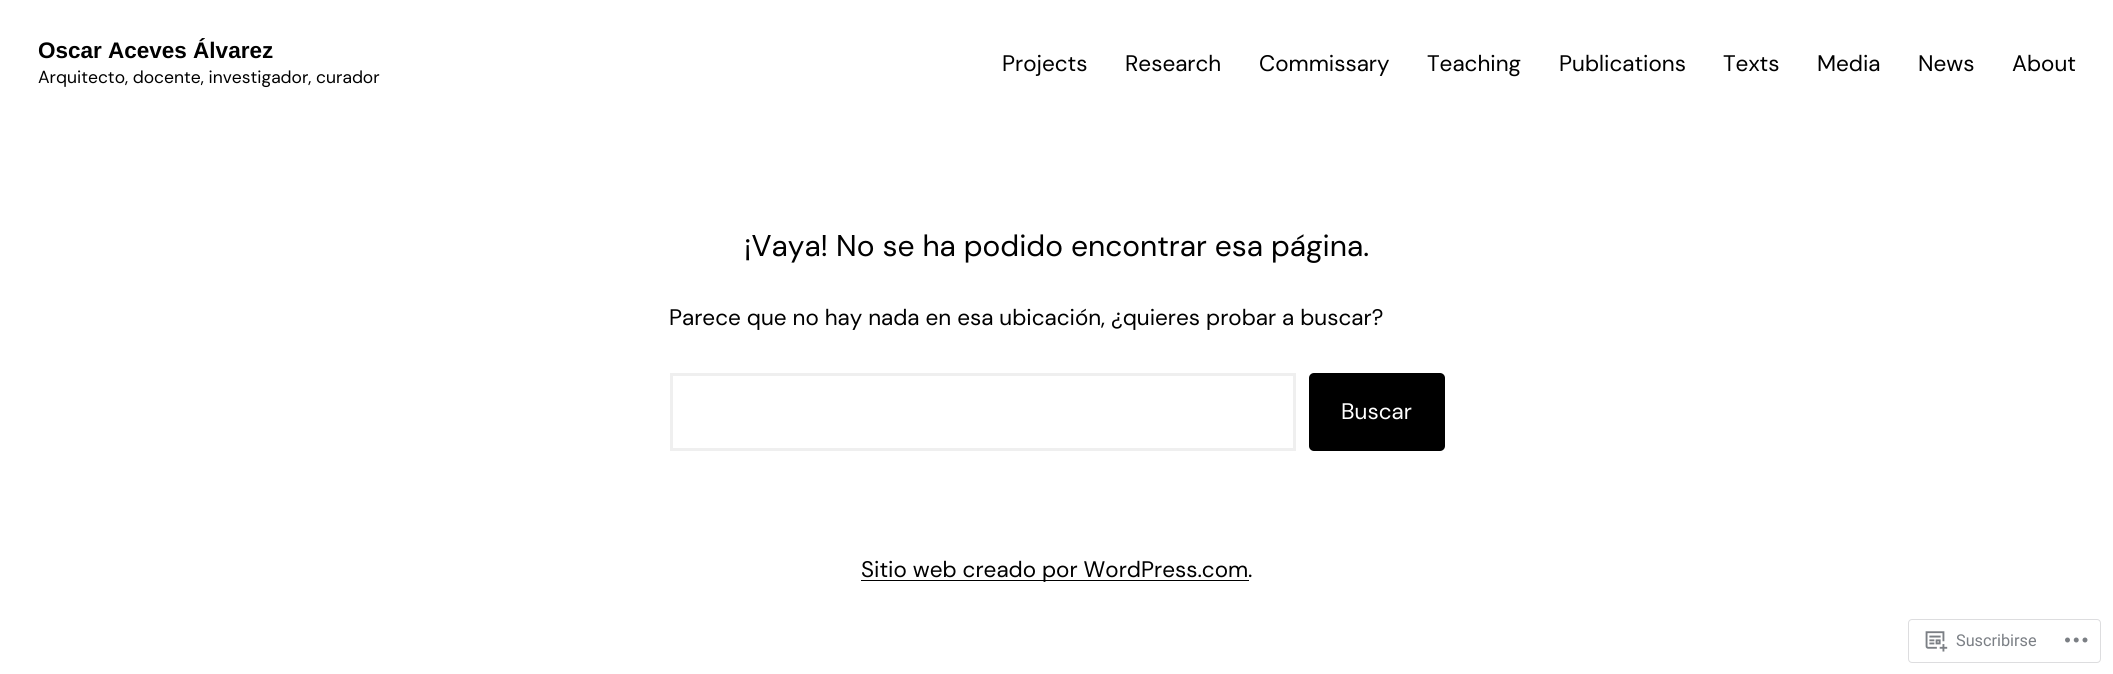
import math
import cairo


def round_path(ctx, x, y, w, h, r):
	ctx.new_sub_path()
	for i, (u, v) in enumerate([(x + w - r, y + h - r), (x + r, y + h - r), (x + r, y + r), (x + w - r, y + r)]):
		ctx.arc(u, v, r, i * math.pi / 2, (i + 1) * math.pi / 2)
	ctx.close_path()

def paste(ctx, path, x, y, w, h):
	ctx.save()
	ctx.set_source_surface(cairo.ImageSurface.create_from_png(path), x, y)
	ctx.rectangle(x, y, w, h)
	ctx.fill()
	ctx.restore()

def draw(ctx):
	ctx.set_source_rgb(1, 1, 1)
	ctx.paint()
	ctx.select_font_face('Liberation Sans', cairo.FONT_SLANT_NORMAL, cairo.FONT_WEIGHT_BOLD)
	ctx.set_font_size(22.5)
	ctx.set_source_rgb(0, 0, 0)
	ctx.move_to(38, 58)
	ctx.show_text('Oscar Aceves Álvarez')
	ctx.select_font_face('DM Sans')
	ctx.set_font_size(17.5)
	ctx.move_to(38, 83)
	ctx.show_text('Arquitecto, docente, investigador, curador')
	ctx.set_font_size(22.5)
	for x, y, s in [
		(1002, 71, 'Projects'),
		(1125, 71, 'Research'),
		(1259, 71, 'Commissary'),
		(1427, 71, 'Teaching'),
		(1559, 71, 'Publications'),
		(1723, 71, 'Texts'),
		(1817, 71, 'Media'),
		(1918, 71, 'News'),
		(2012, 71, 'About'),
	]:
		ctx.move_to(x, y)
		ctx.show_text(s)
	ctx.set_font_size(30)
	ctx.move_to(744, 256)
	ctx.show_text('¡Vaya! No se ha podido encontrar esa página.')
	ctx.set_font_size(22.5)
	ctx.move_to(669, 325)
	ctx.show_text('Parece que no hay nada en esa ubicación, ¿quieres probar a buscar?')
	ctx.rectangle(671.5, 374.5, 623, 75)
	ctx.set_source_rgb(0.937, 0.937, 0.937)
	ctx.set_line_width(3)
	ctx.stroke()
	ctx.set_source_rgb(0, 0, 0)
	round_path(ctx, 1309, 373, 136, 78, 5)
	ctx.fill()
	ctx.set_source_rgb(1, 1, 1)
	ctx.move_to(1341, 419)
	ctx.show_text('Buscar')
	ctx.set_source_rgb(0, 0, 0)
	ctx.rectangle(861, 580, 388, 1)
	ctx.fill()
	ctx.move_to(861, 577)
	ctx.show_text('Sitio web creado por WordPress.com.')
	round_path(ctx, 1908.5, 619.5, 192, 43, 3.5)
	ctx.set_source_rgb(0.867, 0.867, 0.875)
	ctx.set_line_width(1)
	ctx.stroke()
	paste(ctx, 'media/1.png', 1925, 631, 23, 21)
	ctx.select_font_face('Roboto')
	ctx.set_font_size(16.25)
	ctx.set_source_rgb(0.482, 0.498, 0.522)
	ctx.move_to(1956, 646)
	ctx.show_text('Suscribirse')
	paste(ctx, 'media/2.png', 2065, 637, 23, 6)


surface = cairo.ImageSurface(cairo.FORMAT_RGB24, 2113, 674)
ctx = cairo.Context(surface)
options = cairo.FontOptions()
options.set_hint_metrics(cairo.HINT_METRICS_OFF)
options.set_hint_style(cairo.HINT_STYLE_NONE)
ctx.set_font_options(options)
ctx.set_miter_limit(4)
draw(ctx)
surface.write_to_png('image.png')
